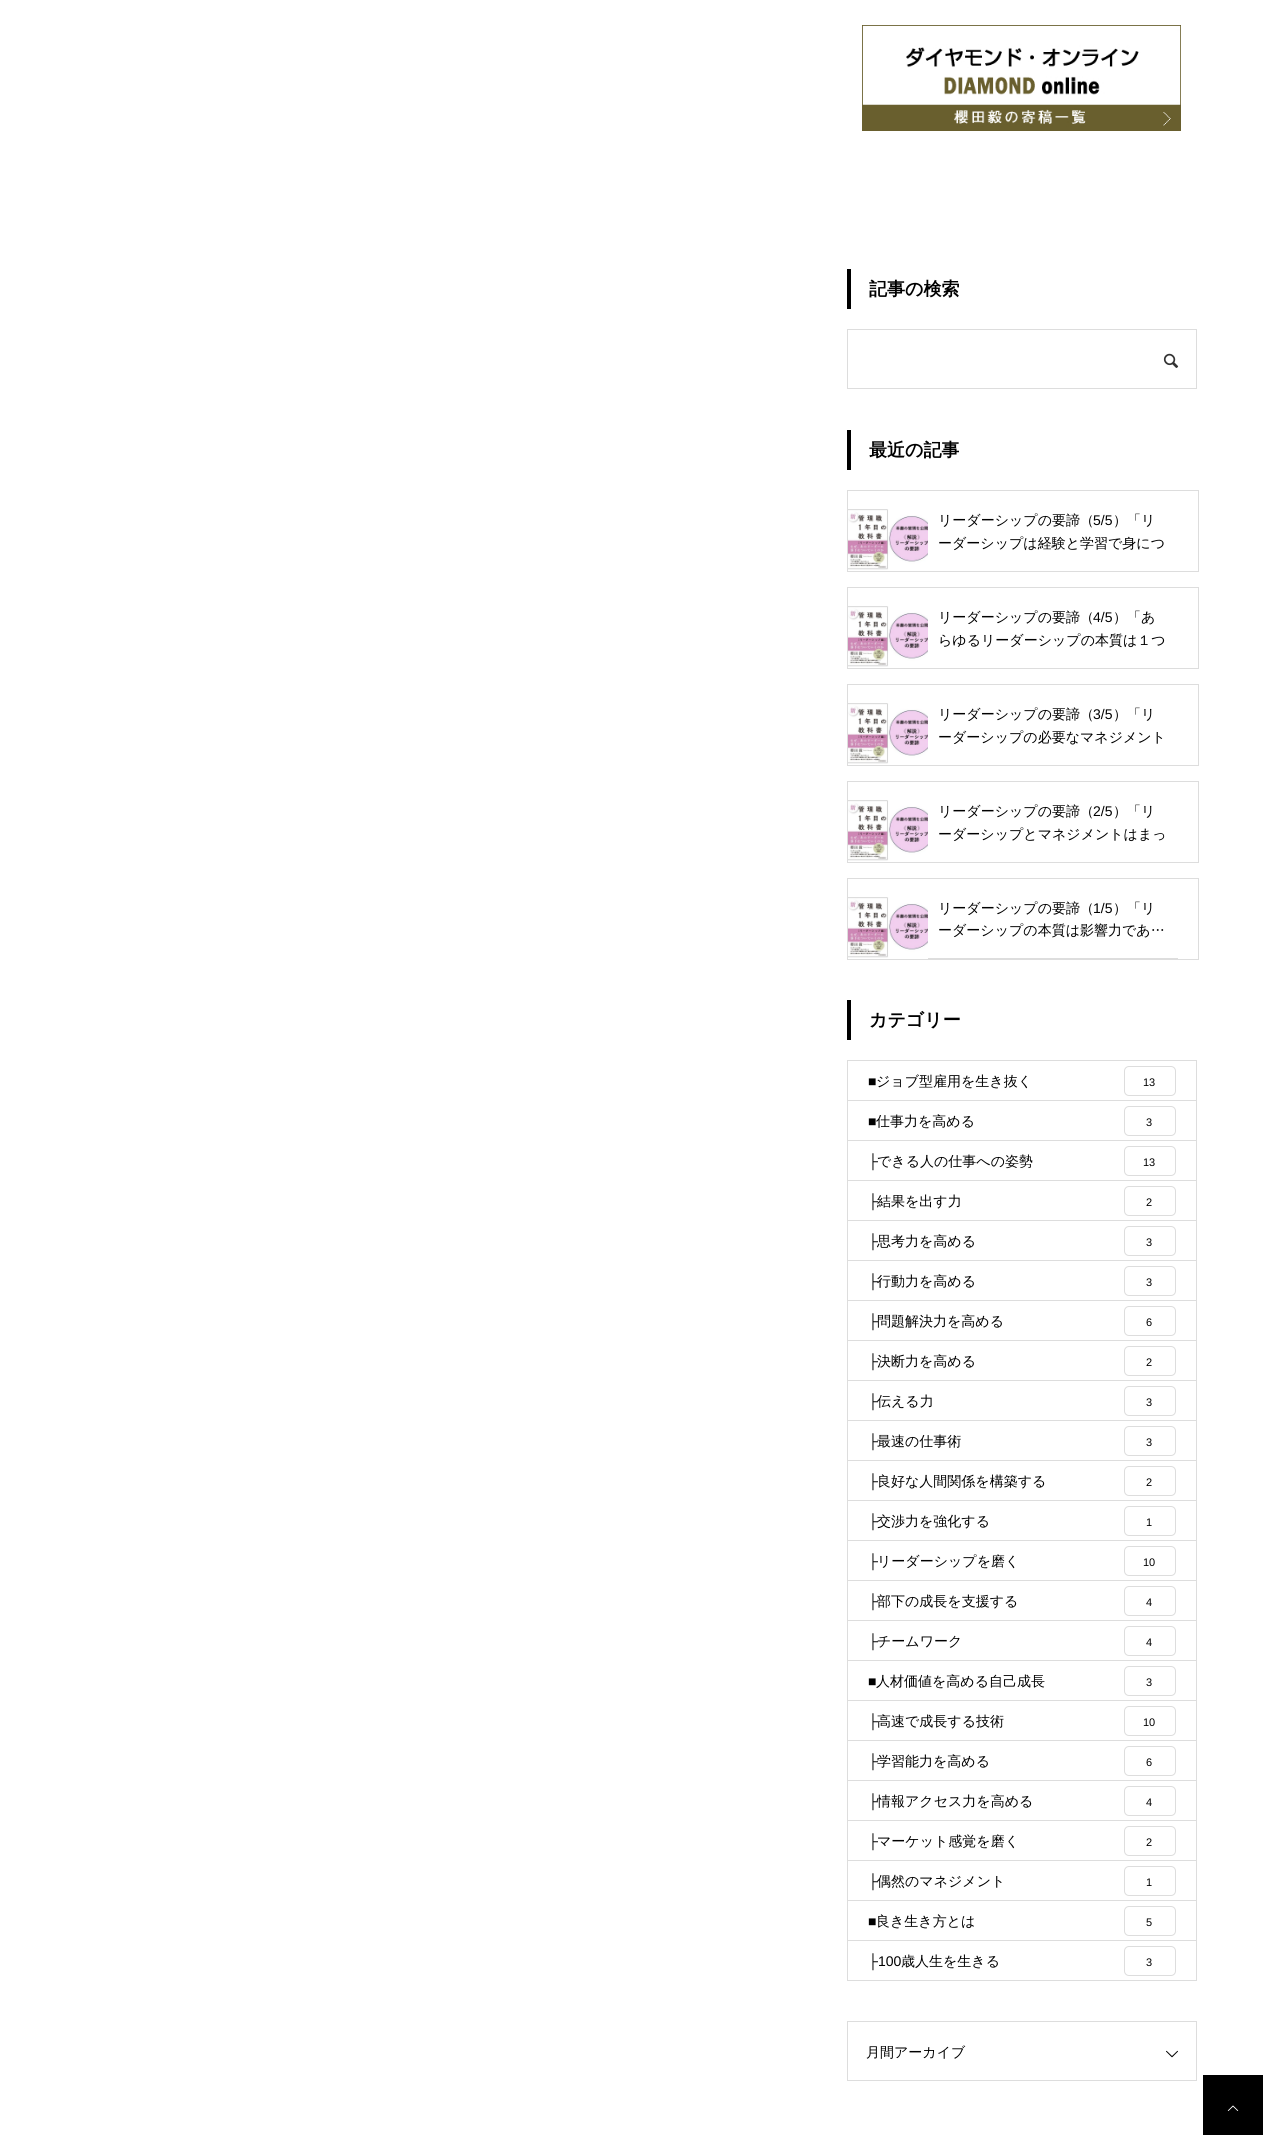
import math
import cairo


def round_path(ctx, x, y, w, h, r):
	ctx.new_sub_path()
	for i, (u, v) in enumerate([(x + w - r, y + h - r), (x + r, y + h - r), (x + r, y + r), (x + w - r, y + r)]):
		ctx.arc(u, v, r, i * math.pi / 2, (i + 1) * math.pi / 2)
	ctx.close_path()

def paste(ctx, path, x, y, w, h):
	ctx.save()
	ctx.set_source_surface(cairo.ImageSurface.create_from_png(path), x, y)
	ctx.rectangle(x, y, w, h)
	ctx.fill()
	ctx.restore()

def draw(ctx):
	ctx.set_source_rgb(1, 1, 1)
	ctx.paint()
	paste(ctx, 'media/1.png', 862, 25, 319, 106)
	ctx.set_source_rgb(0, 0, 0)
	ctx.rectangle(847, 269, 4, 40)
	ctx.fill()
	ctx.select_font_face('WenQuanYi Zen Hei', cairo.FONT_SLANT_NORMAL, cairo.FONT_WEIGHT_BOLD)
	ctx.set_font_size(18)
	ctx.move_to(869, 295)
	ctx.show_text('記事の検索')
	ctx.rectangle(847.5, 329.5, 349, 59)
	ctx.set_source_rgb(0.867, 0.867, 0.867)
	ctx.set_line_width(1)
	ctx.stroke()
	paste(ctx, 'media/2.png', 1163, 353, 16, 15)
	ctx.set_source_rgb(0, 0, 0)
	ctx.rectangle(847, 430, 4, 40)
	ctx.fill()
	ctx.move_to(869, 456)
	ctx.show_text('最近の記事')
	ctx.rectangle(847.5, 490.5, 351, 81)
	ctx.set_source_rgb(0.867, 0.867, 0.867)
	ctx.stroke()
	paste(ctx, 'media/3.png', 848, 509, 80, 61)
	ctx.select_font_face('WenQuanYi Zen Hei Medium')
	ctx.set_font_size(14)
	ctx.set_source_rgb(0, 0, 0)
	ctx.move_to(938, 525)
	ctx.show_text('リーダーシップの要諦（')
	ctx.select_font_face('Liberation Sans')
	ctx.move_to(1093, 525)
	ctx.show_text('5/5')
	ctx.select_font_face('WenQuanYi Zen Hei Medium')
	ctx.move_to(1113, 525)
	ctx.show_text('）「リ')
	ctx.move_to(938, 548)
	ctx.show_text('ーダーシップは経験と学習で身につ')
	ctx.rectangle(847.5, 587.5, 351, 81)
	ctx.set_source_rgb(0.867, 0.867, 0.867)
	ctx.stroke()
	paste(ctx, 'media/3.png', 848, 606, 80, 61)
	ctx.set_source_rgb(0, 0, 0)
	ctx.move_to(938, 622)
	ctx.show_text('リーダーシップの要諦（')
	ctx.select_font_face('Liberation Sans')
	ctx.move_to(1093, 622)
	ctx.show_text('4/5')
	ctx.select_font_face('WenQuanYi Zen Hei Medium')
	ctx.move_to(1113, 622)
	ctx.show_text('）「あ')
	ctx.move_to(938, 645)
	ctx.show_text('らゆるリーダーシップの本質は１つ')
	ctx.rectangle(847.5, 684.5, 351, 81)
	ctx.set_source_rgb(0.867, 0.867, 0.867)
	ctx.stroke()
	paste(ctx, 'media/3.png', 848, 703, 80, 61)
	ctx.set_source_rgb(0, 0, 0)
	ctx.move_to(938, 719)
	ctx.show_text('リーダーシップの要諦（')
	ctx.select_font_face('Liberation Sans')
	ctx.move_to(1093, 719)
	ctx.show_text('3/5')
	ctx.select_font_face('WenQuanYi Zen Hei Medium')
	ctx.move_to(1113, 719)
	ctx.show_text('）「リ')
	ctx.move_to(938, 742)
	ctx.show_text('ーダーシップの必要なマネジメント')
	ctx.rectangle(847.5, 781.5, 351, 81)
	ctx.set_source_rgb(0.867, 0.867, 0.867)
	ctx.stroke()
	paste(ctx, 'media/3.png', 848, 800, 80, 61)
	ctx.set_source_rgb(0, 0, 0)
	ctx.move_to(938, 816)
	ctx.show_text('リーダーシップの要諦（')
	ctx.select_font_face('Liberation Sans')
	ctx.move_to(1093, 816)
	ctx.show_text('2/5')
	ctx.select_font_face('WenQuanYi Zen Hei Medium')
	ctx.move_to(1113, 816)
	ctx.show_text('）「リ')
	ctx.move_to(938, 839)
	ctx.show_text('ーダーシップとマネジメントはまっ')
	ctx.rectangle(847.5, 878.5, 351, 81)
	ctx.set_source_rgb(0.867, 0.867, 0.867)
	ctx.stroke()
	paste(ctx, 'media/3.png', 848, 897, 80, 61)
	ctx.rectangle(928, 958, 250, 1)
	ctx.fill()
	ctx.set_source_rgb(0, 0, 0)
	ctx.move_to(938, 913)
	ctx.show_text('リーダーシップの要諦（')
	ctx.select_font_face('Liberation Sans')
	ctx.move_to(1093, 913)
	ctx.show_text('1/5')
	ctx.select_font_face('WenQuanYi Zen Hei Medium')
	ctx.move_to(1113, 913)
	ctx.show_text('）「リ')
	ctx.move_to(938, 935)
	ctx.show_text('ーダーシップの本質は影響力であ…')
	ctx.rectangle(847, 1000, 4, 40)
	ctx.fill()
	ctx.select_font_face('WenQuanYi Zen Hei', cairo.FONT_SLANT_NORMAL, cairo.FONT_WEIGHT_BOLD)
	ctx.set_font_size(18)
	ctx.move_to(869, 1026)
	ctx.show_text('カテゴリー')
	ctx.set_source_rgb(0.867, 0.867, 0.867)
	ctx.rectangle(847, 1060, 350, 1)
	ctx.rectangle(1196, 1060, 1, 921)
	ctx.rectangle(847, 1060, 1, 921)
	ctx.rectangle(848, 1100, 348, 1)
	ctx.fill()
	ctx.select_font_face('Liberation Sans')
	ctx.set_font_size(14)
	ctx.set_source_rgb(0, 0, 0)
	ctx.move_to(868, 1086)
	ctx.show_text('■')
	ctx.select_font_face('WenQuanYi Zen Hei Medium')
	ctx.move_to(876, 1086)
	ctx.show_text('ジョブ型雇用を生き抜く')
	round_path(ctx, 1124.5, 1066.5, 51, 29, 4.5)
	ctx.set_source_rgb(0.867, 0.867, 0.867)
	ctx.stroke()
	ctx.select_font_face('Liberation Sans')
	ctx.set_font_size(11)
	ctx.set_source_rgb(0, 0, 0)
	ctx.move_to(1143, 1086)
	ctx.show_text('13')
	ctx.set_source_rgb(0.867, 0.867, 0.867)
	ctx.rectangle(848, 1140, 348, 1)
	ctx.fill()
	ctx.set_font_size(14)
	ctx.set_source_rgb(0, 0, 0)
	ctx.move_to(868, 1126)
	ctx.show_text('■')
	ctx.select_font_face('WenQuanYi Zen Hei Medium')
	ctx.move_to(876, 1126)
	ctx.show_text('仕事力を高める')
	round_path(ctx, 1124.5, 1106.5, 51, 29, 4.5)
	ctx.set_source_rgb(0.867, 0.867, 0.867)
	ctx.stroke()
	ctx.select_font_face('Liberation Sans')
	ctx.set_font_size(11)
	ctx.set_source_rgb(0, 0, 0)
	ctx.move_to(1146, 1126)
	ctx.show_text('3')
	ctx.set_source_rgb(0.867, 0.867, 0.867)
	ctx.rectangle(848, 1180, 348, 1)
	ctx.fill()
	ctx.set_font_size(14)
	ctx.set_source_rgb(0, 0, 0)
	ctx.move_to(868, 1166)
	ctx.show_text('├')
	ctx.select_font_face('WenQuanYi Zen Hei Medium')
	ctx.move_to(877, 1166)
	ctx.show_text('できる人の仕事への姿勢')
	round_path(ctx, 1124.5, 1146.5, 51, 29, 4.5)
	ctx.set_source_rgb(0.867, 0.867, 0.867)
	ctx.stroke()
	ctx.select_font_face('Liberation Sans')
	ctx.set_font_size(11)
	ctx.set_source_rgb(0, 0, 0)
	ctx.move_to(1143, 1166)
	ctx.show_text('13')
	ctx.set_source_rgb(0.867, 0.867, 0.867)
	ctx.rectangle(848, 1220, 348, 1)
	ctx.fill()
	ctx.set_font_size(14)
	ctx.set_source_rgb(0, 0, 0)
	ctx.move_to(868, 1206)
	ctx.show_text('├')
	ctx.select_font_face('WenQuanYi Zen Hei Medium')
	ctx.move_to(877, 1206)
	ctx.show_text('結果を出す力')
	round_path(ctx, 1124.5, 1186.5, 51, 29, 4.5)
	ctx.set_source_rgb(0.867, 0.867, 0.867)
	ctx.stroke()
	ctx.select_font_face('Liberation Sans')
	ctx.set_font_size(11)
	ctx.set_source_rgb(0, 0, 0)
	ctx.move_to(1146, 1206)
	ctx.show_text('2')
	ctx.set_source_rgb(0.867, 0.867, 0.867)
	ctx.rectangle(848, 1260, 348, 1)
	ctx.fill()
	ctx.set_font_size(14)
	ctx.set_source_rgb(0, 0, 0)
	ctx.move_to(868, 1246)
	ctx.show_text('├')
	ctx.select_font_face('WenQuanYi Zen Hei Medium')
	ctx.move_to(877, 1246)
	ctx.show_text('思考力を高める')
	round_path(ctx, 1124.5, 1226.5, 51, 29, 4.5)
	ctx.set_source_rgb(0.867, 0.867, 0.867)
	ctx.stroke()
	ctx.select_font_face('Liberation Sans')
	ctx.set_font_size(11)
	ctx.set_source_rgb(0, 0, 0)
	ctx.move_to(1146, 1246)
	ctx.show_text('3')
	ctx.set_source_rgb(0.867, 0.867, 0.867)
	ctx.rectangle(848, 1300, 348, 1)
	ctx.fill()
	ctx.set_font_size(14)
	ctx.set_source_rgb(0, 0, 0)
	ctx.move_to(868, 1286)
	ctx.show_text('├')
	ctx.select_font_face('WenQuanYi Zen Hei Medium')
	ctx.move_to(877, 1286)
	ctx.show_text('行動力を高める')
	round_path(ctx, 1124.5, 1266.5, 51, 29, 4.5)
	ctx.set_source_rgb(0.867, 0.867, 0.867)
	ctx.stroke()
	ctx.select_font_face('Liberation Sans')
	ctx.set_font_size(11)
	ctx.set_source_rgb(0, 0, 0)
	ctx.move_to(1146, 1286)
	ctx.show_text('3')
	ctx.set_source_rgb(0.867, 0.867, 0.867)
	ctx.rectangle(848, 1340, 348, 1)
	ctx.fill()
	ctx.set_font_size(14)
	ctx.set_source_rgb(0, 0, 0)
	ctx.move_to(868, 1326)
	ctx.show_text('├')
	ctx.select_font_face('WenQuanYi Zen Hei Medium')
	ctx.move_to(877, 1326)
	ctx.show_text('問題解決力を高める')
	round_path(ctx, 1124.5, 1306.5, 51, 29, 4.5)
	ctx.set_source_rgb(0.867, 0.867, 0.867)
	ctx.stroke()
	ctx.select_font_face('Liberation Sans')
	ctx.set_font_size(11)
	ctx.set_source_rgb(0, 0, 0)
	ctx.move_to(1146, 1326)
	ctx.show_text('6')
	ctx.set_source_rgb(0.867, 0.867, 0.867)
	ctx.rectangle(848, 1380, 348, 1)
	ctx.fill()
	ctx.set_font_size(14)
	ctx.set_source_rgb(0, 0, 0)
	ctx.move_to(868, 1366)
	ctx.show_text('├')
	ctx.select_font_face('WenQuanYi Zen Hei Medium')
	ctx.move_to(877, 1366)
	ctx.show_text('決断力を高める')
	round_path(ctx, 1124.5, 1346.5, 51, 29, 4.5)
	ctx.set_source_rgb(0.867, 0.867, 0.867)
	ctx.stroke()
	ctx.select_font_face('Liberation Sans')
	ctx.set_font_size(11)
	ctx.set_source_rgb(0, 0, 0)
	ctx.move_to(1146, 1366)
	ctx.show_text('2')
	ctx.set_source_rgb(0.867, 0.867, 0.867)
	ctx.rectangle(848, 1420, 348, 1)
	ctx.fill()
	ctx.set_font_size(14)
	ctx.set_source_rgb(0, 0, 0)
	ctx.move_to(868, 1406)
	ctx.show_text('├')
	ctx.select_font_face('WenQuanYi Zen Hei Medium')
	ctx.move_to(877, 1406)
	ctx.show_text('伝える力')
	round_path(ctx, 1124.5, 1386.5, 51, 29, 4.5)
	ctx.set_source_rgb(0.867, 0.867, 0.867)
	ctx.stroke()
	ctx.select_font_face('Liberation Sans')
	ctx.set_font_size(11)
	ctx.set_source_rgb(0, 0, 0)
	ctx.move_to(1146, 1406)
	ctx.show_text('3')
	ctx.set_source_rgb(0.867, 0.867, 0.867)
	ctx.rectangle(848, 1460, 348, 1)
	ctx.fill()
	ctx.set_font_size(14)
	ctx.set_source_rgb(0, 0, 0)
	ctx.move_to(868, 1446)
	ctx.show_text('├')
	ctx.select_font_face('WenQuanYi Zen Hei Medium')
	ctx.move_to(877, 1446)
	ctx.show_text('最速の仕事術')
	round_path(ctx, 1124.5, 1426.5, 51, 29, 4.5)
	ctx.set_source_rgb(0.867, 0.867, 0.867)
	ctx.stroke()
	ctx.select_font_face('Liberation Sans')
	ctx.set_font_size(11)
	ctx.set_source_rgb(0, 0, 0)
	ctx.move_to(1146, 1446)
	ctx.show_text('3')
	ctx.set_source_rgb(0.867, 0.867, 0.867)
	ctx.rectangle(848, 1500, 348, 1)
	ctx.fill()
	ctx.set_font_size(14)
	ctx.set_source_rgb(0, 0, 0)
	ctx.move_to(868, 1486)
	ctx.show_text('├')
	ctx.select_font_face('WenQuanYi Zen Hei Medium')
	ctx.move_to(877, 1486)
	ctx.show_text('良好な人間関係を構築する')
	round_path(ctx, 1124.5, 1466.5, 51, 29, 4.5)
	ctx.set_source_rgb(0.867, 0.867, 0.867)
	ctx.stroke()
	ctx.select_font_face('Liberation Sans')
	ctx.set_font_size(11)
	ctx.set_source_rgb(0, 0, 0)
	ctx.move_to(1146, 1486)
	ctx.show_text('2')
	ctx.set_source_rgb(0.867, 0.867, 0.867)
	ctx.rectangle(848, 1540, 348, 1)
	ctx.fill()
	ctx.set_font_size(14)
	ctx.set_source_rgb(0, 0, 0)
	ctx.move_to(868, 1526)
	ctx.show_text('├')
	ctx.select_font_face('WenQuanYi Zen Hei Medium')
	ctx.move_to(877, 1526)
	ctx.show_text('交渉力を強化する')
	round_path(ctx, 1124.5, 1506.5, 51, 29, 4.5)
	ctx.set_source_rgb(0.867, 0.867, 0.867)
	ctx.stroke()
	ctx.select_font_face('Liberation Sans')
	ctx.set_font_size(11)
	ctx.set_source_rgb(0, 0, 0)
	ctx.move_to(1146, 1526)
	ctx.show_text('1')
	ctx.set_source_rgb(0.867, 0.867, 0.867)
	ctx.rectangle(848, 1580, 348, 1)
	ctx.fill()
	ctx.set_font_size(14)
	ctx.set_source_rgb(0, 0, 0)
	ctx.move_to(868, 1566)
	ctx.show_text('├')
	ctx.select_font_face('WenQuanYi Zen Hei Medium')
	ctx.move_to(877, 1566)
	ctx.show_text('リーダーシップを磨く')
	round_path(ctx, 1124.5, 1546.5, 51, 29, 4.5)
	ctx.set_source_rgb(0.867, 0.867, 0.867)
	ctx.stroke()
	ctx.select_font_face('Liberation Sans')
	ctx.set_font_size(11)
	ctx.set_source_rgb(0, 0, 0)
	ctx.move_to(1143, 1566)
	ctx.show_text('10')
	ctx.set_source_rgb(0.867, 0.867, 0.867)
	ctx.rectangle(848, 1620, 348, 1)
	ctx.fill()
	ctx.set_font_size(14)
	ctx.set_source_rgb(0, 0, 0)
	ctx.move_to(868, 1606)
	ctx.show_text('├')
	ctx.select_font_face('WenQuanYi Zen Hei Medium')
	ctx.move_to(877, 1606)
	ctx.show_text('部下の成長を支援する')
	round_path(ctx, 1124.5, 1586.5, 51, 29, 4.5)
	ctx.set_source_rgb(0.867, 0.867, 0.867)
	ctx.stroke()
	ctx.select_font_face('Liberation Sans')
	ctx.set_font_size(11)
	ctx.set_source_rgb(0, 0, 0)
	ctx.move_to(1146, 1606)
	ctx.show_text('4')
	ctx.set_source_rgb(0.867, 0.867, 0.867)
	ctx.rectangle(848, 1660, 348, 1)
	ctx.fill()
	ctx.set_font_size(14)
	ctx.set_source_rgb(0, 0, 0)
	ctx.move_to(868, 1646)
	ctx.show_text('├')
	ctx.select_font_face('WenQuanYi Zen Hei Medium')
	ctx.move_to(877, 1646)
	ctx.show_text('チームワーク')
	round_path(ctx, 1124.5, 1626.5, 51, 29, 4.5)
	ctx.set_source_rgb(0.867, 0.867, 0.867)
	ctx.stroke()
	ctx.select_font_face('Liberation Sans')
	ctx.set_font_size(11)
	ctx.set_source_rgb(0, 0, 0)
	ctx.move_to(1146, 1646)
	ctx.show_text('4')
	ctx.set_source_rgb(0.867, 0.867, 0.867)
	ctx.rectangle(848, 1700, 348, 1)
	ctx.fill()
	ctx.set_font_size(14)
	ctx.set_source_rgb(0, 0, 0)
	ctx.move_to(868, 1686)
	ctx.show_text('■')
	ctx.select_font_face('WenQuanYi Zen Hei Medium')
	ctx.move_to(876, 1686)
	ctx.show_text('人材価値を高める自己成長')
	round_path(ctx, 1124.5, 1666.5, 51, 29, 4.5)
	ctx.set_source_rgb(0.867, 0.867, 0.867)
	ctx.stroke()
	ctx.select_font_face('Liberation Sans')
	ctx.set_font_size(11)
	ctx.set_source_rgb(0, 0, 0)
	ctx.move_to(1146, 1686)
	ctx.show_text('3')
	ctx.set_source_rgb(0.867, 0.867, 0.867)
	ctx.rectangle(848, 1740, 348, 1)
	ctx.fill()
	ctx.set_font_size(14)
	ctx.set_source_rgb(0, 0, 0)
	ctx.move_to(868, 1726)
	ctx.show_text('├')
	ctx.select_font_face('WenQuanYi Zen Hei Medium')
	ctx.move_to(877, 1726)
	ctx.show_text('高速で成長する技術')
	round_path(ctx, 1124.5, 1706.5, 51, 29, 4.5)
	ctx.set_source_rgb(0.867, 0.867, 0.867)
	ctx.stroke()
	ctx.select_font_face('Liberation Sans')
	ctx.set_font_size(11)
	ctx.set_source_rgb(0, 0, 0)
	ctx.move_to(1143, 1726)
	ctx.show_text('10')
	ctx.set_source_rgb(0.867, 0.867, 0.867)
	ctx.rectangle(848, 1780, 348, 1)
	ctx.fill()
	ctx.set_font_size(14)
	ctx.set_source_rgb(0, 0, 0)
	ctx.move_to(868, 1766)
	ctx.show_text('├')
	ctx.select_font_face('WenQuanYi Zen Hei Medium')
	ctx.move_to(877, 1766)
	ctx.show_text('学習能力を高める')
	round_path(ctx, 1124.5, 1746.5, 51, 29, 4.5)
	ctx.set_source_rgb(0.867, 0.867, 0.867)
	ctx.stroke()
	ctx.select_font_face('Liberation Sans')
	ctx.set_font_size(11)
	ctx.set_source_rgb(0, 0, 0)
	ctx.move_to(1146, 1766)
	ctx.show_text('6')
	ctx.set_source_rgb(0.867, 0.867, 0.867)
	ctx.rectangle(848, 1820, 348, 1)
	ctx.fill()
	ctx.set_font_size(14)
	ctx.set_source_rgb(0, 0, 0)
	ctx.move_to(868, 1806)
	ctx.show_text('├')
	ctx.select_font_face('WenQuanYi Zen Hei Medium')
	ctx.move_to(877, 1806)
	ctx.show_text('情報アクセス力を高める')
	round_path(ctx, 1124.5, 1786.5, 51, 29, 4.5)
	ctx.set_source_rgb(0.867, 0.867, 0.867)
	ctx.stroke()
	ctx.select_font_face('Liberation Sans')
	ctx.set_font_size(11)
	ctx.set_source_rgb(0, 0, 0)
	ctx.move_to(1146, 1806)
	ctx.show_text('4')
	ctx.set_source_rgb(0.867, 0.867, 0.867)
	ctx.rectangle(848, 1860, 348, 1)
	ctx.fill()
	ctx.set_font_size(14)
	ctx.set_source_rgb(0, 0, 0)
	ctx.move_to(868, 1846)
	ctx.show_text('├')
	ctx.select_font_face('WenQuanYi Zen Hei Medium')
	ctx.move_to(877, 1846)
	ctx.show_text('マーケット感覚を磨く')
	round_path(ctx, 1124.5, 1826.5, 51, 29, 4.5)
	ctx.set_source_rgb(0.867, 0.867, 0.867)
	ctx.stroke()
	ctx.select_font_face('Liberation Sans')
	ctx.set_font_size(11)
	ctx.set_source_rgb(0, 0, 0)
	ctx.move_to(1146, 1846)
	ctx.show_text('2')
	ctx.set_source_rgb(0.867, 0.867, 0.867)
	ctx.rectangle(848, 1900, 348, 1)
	ctx.fill()
	ctx.set_font_size(14)
	ctx.set_source_rgb(0, 0, 0)
	ctx.move_to(868, 1886)
	ctx.show_text('├')
	ctx.select_font_face('WenQuanYi Zen Hei Medium')
	ctx.move_to(877, 1886)
	ctx.show_text('偶然のマネジメント')
	round_path(ctx, 1124.5, 1866.5, 51, 29, 4.5)
	ctx.set_source_rgb(0.867, 0.867, 0.867)
	ctx.stroke()
	ctx.select_font_face('Liberation Sans')
	ctx.set_font_size(11)
	ctx.set_source_rgb(0, 0, 0)
	ctx.move_to(1146, 1886)
	ctx.show_text('1')
	ctx.set_source_rgb(0.867, 0.867, 0.867)
	ctx.rectangle(848, 1940, 348, 1)
	ctx.fill()
	ctx.set_font_size(14)
	ctx.set_source_rgb(0, 0, 0)
	ctx.move_to(868, 1926)
	ctx.show_text('■')
	ctx.select_font_face('WenQuanYi Zen Hei Medium')
	ctx.move_to(876, 1926)
	ctx.show_text('良き生き方とは')
	round_path(ctx, 1124.5, 1906.5, 51, 29, 4.5)
	ctx.set_source_rgb(0.867, 0.867, 0.867)
	ctx.stroke()
	ctx.select_font_face('Liberation Sans')
	ctx.set_font_size(11)
	ctx.set_source_rgb(0, 0, 0)
	ctx.move_to(1146, 1926)
	ctx.show_text('5')
	ctx.set_source_rgb(0.867, 0.867, 0.867)
	ctx.rectangle(848, 1980, 348, 1)
	ctx.fill()
	ctx.set_font_size(14)
	ctx.set_source_rgb(0, 0, 0)
	ctx.move_to(868, 1966)
	ctx.show_text('├100')
	ctx.select_font_face('WenQuanYi Zen Hei Medium')
	ctx.move_to(901, 1966)
	ctx.show_text('歳人生を生きる')
	round_path(ctx, 1124.5, 1946.5, 51, 29, 4.5)
	ctx.set_source_rgb(0.867, 0.867, 0.867)
	ctx.stroke()
	ctx.select_font_face('Liberation Sans')
	ctx.set_font_size(11)
	ctx.set_source_rgb(0, 0, 0)
	ctx.move_to(1146, 1966)
	ctx.show_text('3')
	ctx.rectangle(847.5, 2021.5, 349, 59)
	ctx.set_source_rgb(0.867, 0.867, 0.867)
	ctx.stroke()
	ctx.select_font_face('WenQuanYi Zen Hei Medium')
	ctx.set_font_size(14)
	ctx.set_source_rgb(0, 0, 0)
	ctx.move_to(866, 2057)
	ctx.show_text('月間アーカイブ')
	paste(ctx, 'media/4.png', 1166, 2050, 12, 8)
	ctx.rectangle(1203, 2075, 60, 60)
	ctx.fill()
	paste(ctx, 'media/5.png', 1227, 2105, 12, 6)


surface = cairo.ImageSurface(cairo.FORMAT_RGB24, 1263, 2135)
ctx = cairo.Context(surface)
options = cairo.FontOptions()
options.set_hint_metrics(cairo.HINT_METRICS_OFF)
options.set_hint_style(cairo.HINT_STYLE_NONE)
ctx.set_font_options(options)
ctx.set_miter_limit(4)
draw(ctx)
surface.write_to_png('image.png')
